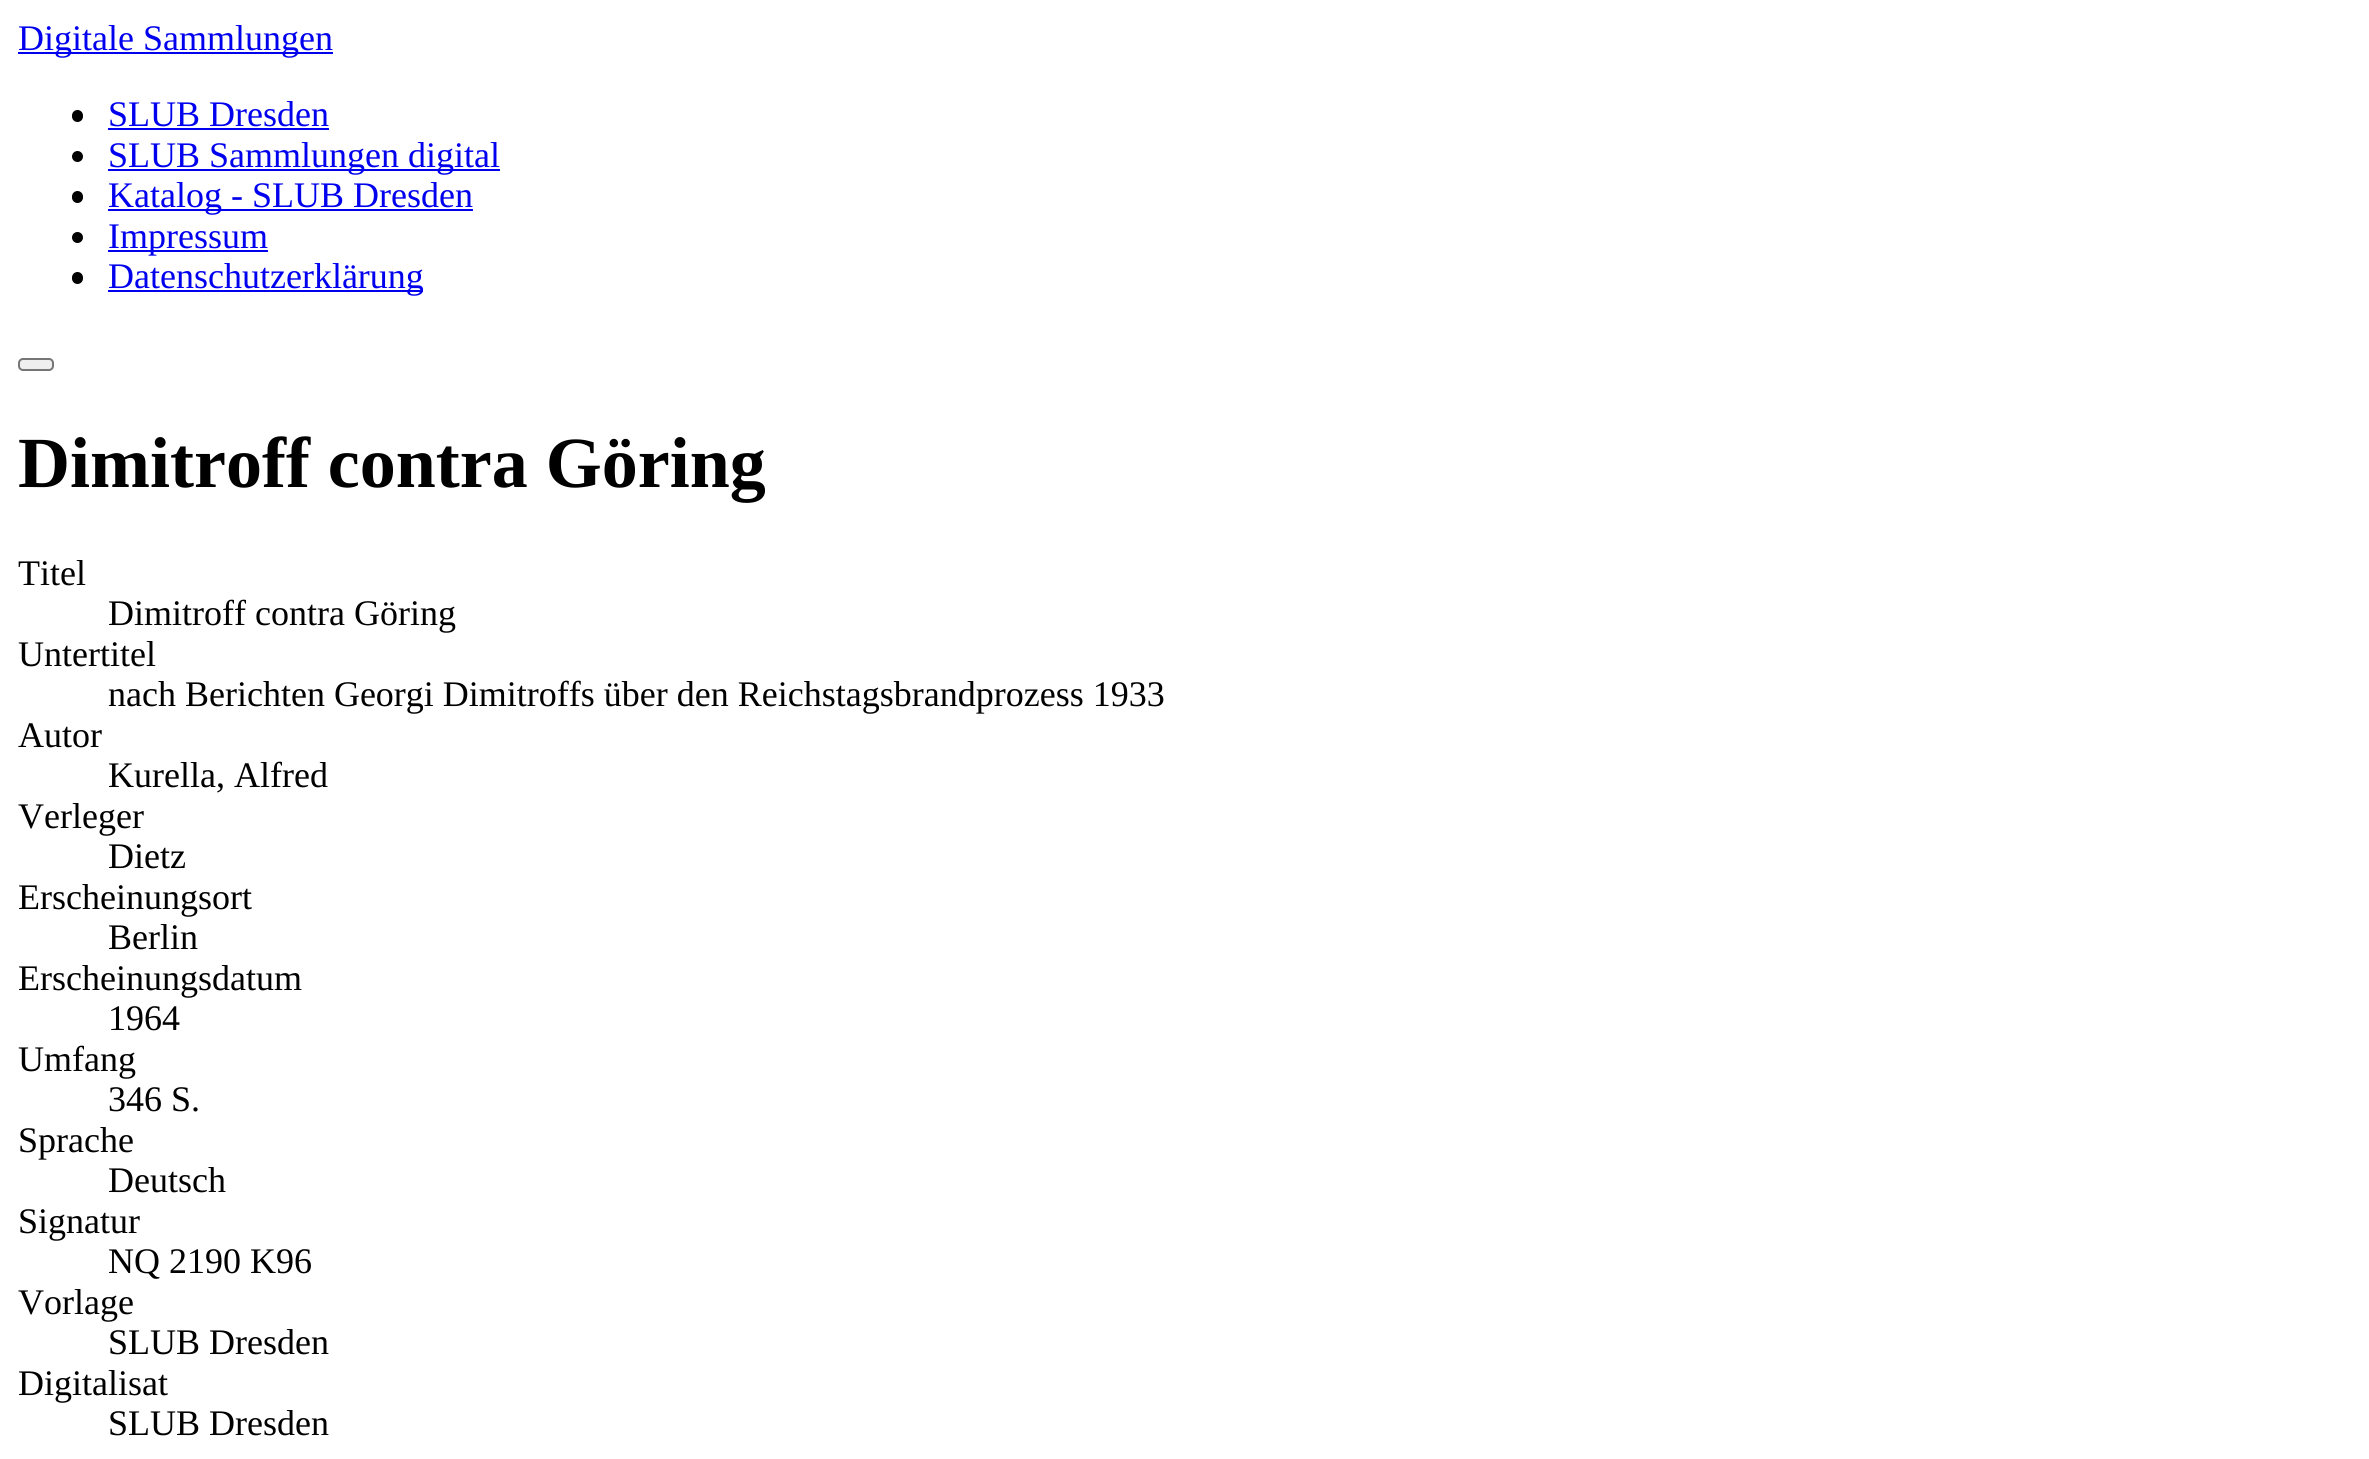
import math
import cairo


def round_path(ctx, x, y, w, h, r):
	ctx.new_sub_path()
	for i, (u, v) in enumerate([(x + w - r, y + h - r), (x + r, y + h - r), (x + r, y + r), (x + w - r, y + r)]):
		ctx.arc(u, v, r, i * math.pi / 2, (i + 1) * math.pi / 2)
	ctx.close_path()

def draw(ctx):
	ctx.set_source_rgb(1, 1, 1)
	ctx.paint()
	ctx.set_source_rgb(0, 0, 0.933)
	ctx.rectangle(18, 52, 315, 2)
	ctx.fill()
	ctx.select_font_face('Liberation Serif')
	ctx.set_font_size(36)
	ctx.move_to(18, 50)
	ctx.show_text('Digitale Sammlungen')
	ctx.set_source_rgb(0, 0, 0)
	round_path(ctx, 72, 110, 11, 12, 5.5)
	ctx.fill()
	ctx.set_source_rgb(0, 0, 0.933)
	ctx.move_to(108, 126)
	ctx.show_text('SLUB Dresden')
	ctx.rectangle(108, 128, 221, 2)
	ctx.fill()
	ctx.set_source_rgb(0, 0, 0)
	ctx.arc(77.5, 156.5, 5.5, 0, 2 * math.pi)
	ctx.fill()
	ctx.set_source_rgb(0, 0, 0.933)
	ctx.rectangle(108, 169, 392, 2)
	ctx.fill()
	ctx.move_to(108, 167)
	ctx.show_text('SLUB Sammlungen digital')
	ctx.set_source_rgb(0, 0, 0)
	round_path(ctx, 72, 191, 11, 12, 5.5)
	ctx.fill()
	ctx.set_source_rgb(0, 0, 0.933)
	ctx.rectangle(108, 209, 365, 2)
	ctx.fill()
	ctx.move_to(108, 207)
	ctx.show_text('Katalog - SLUB Dresden')
	ctx.set_source_rgb(0, 0, 0)
	ctx.new_path()
	ctx.arc(77.5, 237.5, 5.5, 0, 2 * math.pi)
	ctx.fill()
	ctx.set_source_rgb(0, 0, 0.933)
	ctx.rectangle(108, 250, 160, 2)
	ctx.fill()
	ctx.move_to(108, 248)
	ctx.show_text('Impressum')
	ctx.set_source_rgb(0, 0, 0)
	round_path(ctx, 72, 272, 11, 12, 5.5)
	ctx.fill()
	ctx.set_source_rgb(0, 0, 0.933)
	ctx.rectangle(108, 290, 315, 2)
	ctx.fill()
	ctx.move_to(108, 288)
	ctx.show_text('Datenschutzerklärung')
	ctx.set_source_rgb(0.937, 0.937, 0.937)
	round_path(ctx, 19, 359, 34, 11, 4)
	ctx.fill_preserve()
	ctx.set_source_rgb(0.463, 0.463, 0.463)
	ctx.stroke()
	ctx.select_font_face('Liberation Serif', cairo.FONT_SLANT_NORMAL, cairo.FONT_WEIGHT_BOLD)
	ctx.set_font_size(72)
	ctx.set_source_rgb(0, 0, 0)
	ctx.move_to(18, 487)
	ctx.show_text('Dimitroff contra Göring')
	ctx.select_font_face('Liberation Serif')
	ctx.set_font_size(36)
	for x, y, s in [
		(18, 585, 'Titel'),
		(108, 625, 'Dimitroff contra Göring'),
		(18, 666, 'Untertitel'),
		(108, 706, 'nach Berichten Georgi Dimitroffs über den Reichstagsbrandprozess 1933'),
		(18, 747, 'Autor'),
		(108, 787, 'Kurella, Alfred'),
		(18, 828, 'Verleger'),
		(108, 868, 'Dietz'),
		(18, 909, 'Erscheinungsort'),
		(108, 949, 'Berlin'),
		(18, 990, 'Erscheinungsdatum'),
		(108, 1030, '1964'),
		(18, 1071, 'Umfang'),
		(108, 1111, '346 S.'),
		(18, 1152, 'Sprache'),
		(108, 1192, 'Deutsch'),
		(18, 1233, 'Signatur'),
		(108, 1273, 'NQ 2190 K96'),
		(18, 1314, 'Vorlage'),
		(108, 1354, 'SLUB Dresden'),
		(18, 1395, 'Digitalisat'),
		(108, 1435, 'SLUB Dresden'),
	]:
		ctx.move_to(x, y)
		ctx.show_text(s)


surface = cairo.ImageSurface(cairo.FORMAT_RGB24, 2369, 1459)
ctx = cairo.Context(surface)
options = cairo.FontOptions()
options.set_hint_metrics(cairo.HINT_METRICS_OFF)
options.set_hint_style(cairo.HINT_STYLE_NONE)
ctx.set_font_options(options)
ctx.set_miter_limit(4)
draw(ctx)
surface.write_to_png('image.png')
